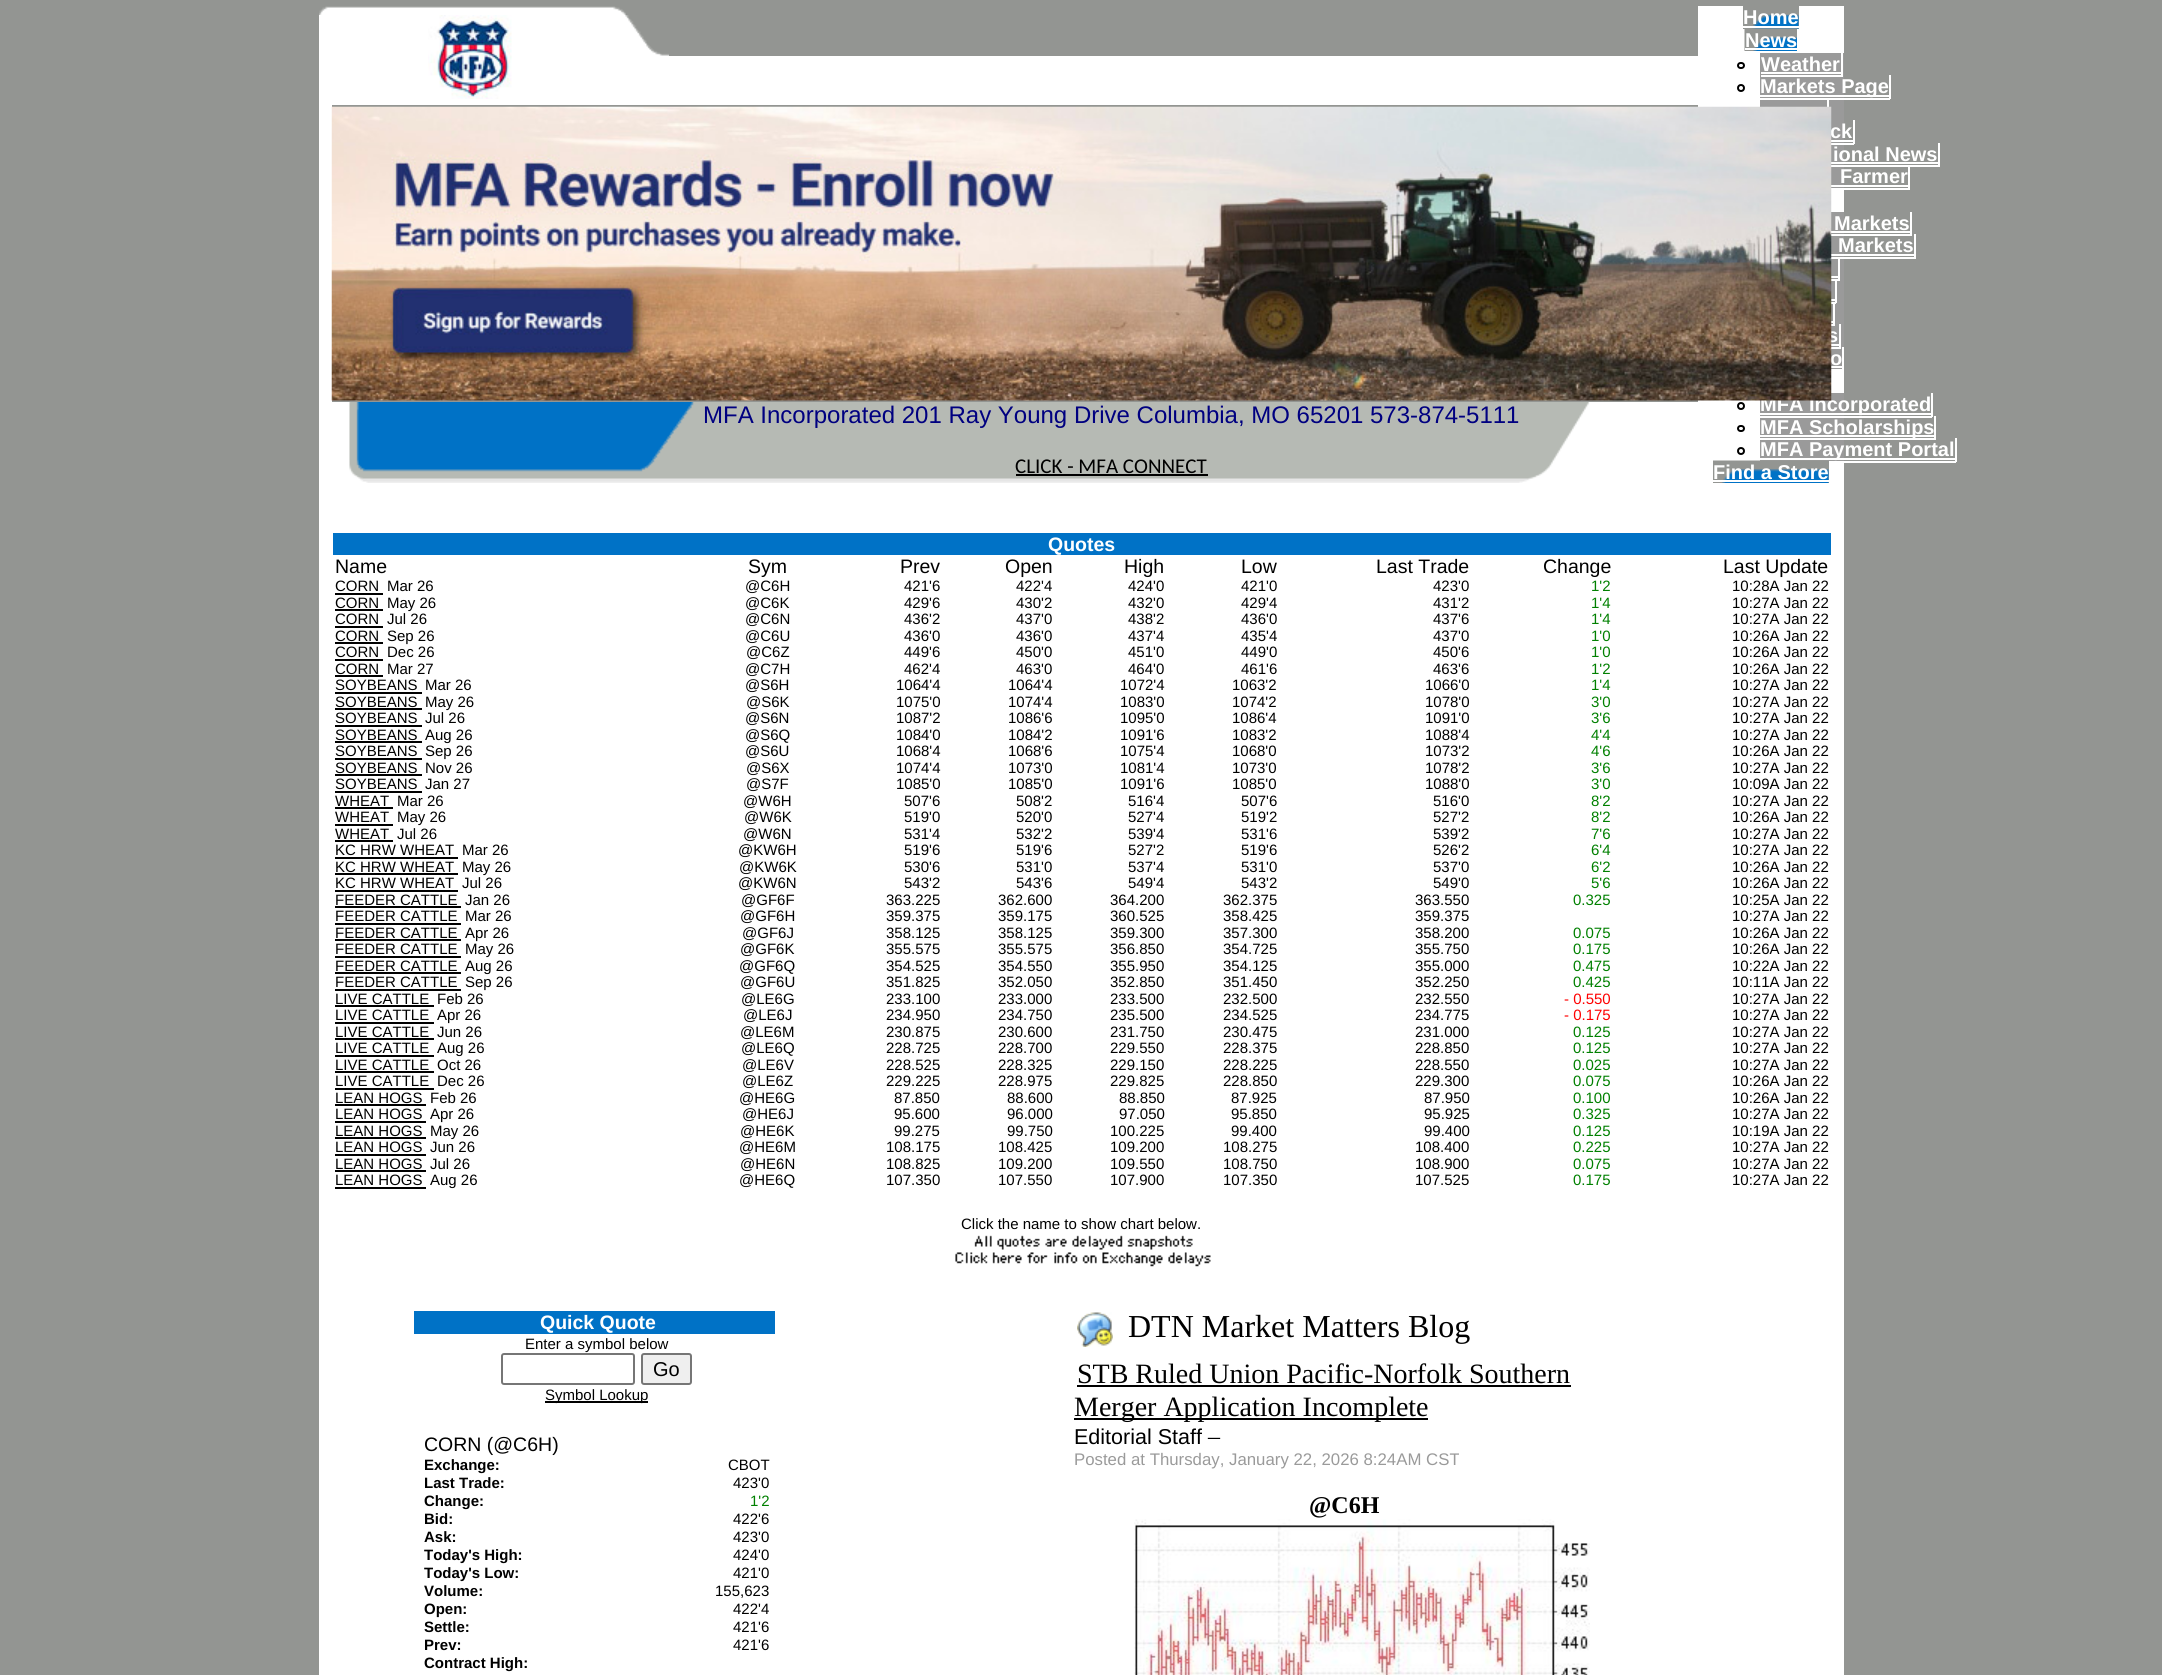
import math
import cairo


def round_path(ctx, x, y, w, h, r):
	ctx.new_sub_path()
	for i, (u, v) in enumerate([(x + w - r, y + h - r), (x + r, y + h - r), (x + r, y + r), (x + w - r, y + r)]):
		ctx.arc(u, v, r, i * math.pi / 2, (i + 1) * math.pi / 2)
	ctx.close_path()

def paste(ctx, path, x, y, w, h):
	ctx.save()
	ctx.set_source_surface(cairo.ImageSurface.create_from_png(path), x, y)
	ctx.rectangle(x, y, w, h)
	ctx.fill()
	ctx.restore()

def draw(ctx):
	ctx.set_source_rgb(0.576, 0.584, 0.573)
	ctx.paint()
	ctx.set_source_rgb(1, 1, 1)
	ctx.rectangle(319, 15, 13, 1660)
	ctx.fill()
	ctx.rectangle(332, 15, 337, 90)
	ctx.fill()
	paste(ctx, 'media/1.png', 428, 15, 84, 84)
	paste(ctx, 'media/2.png', 625, 15, 44, 41)
	ctx.rectangle(669, 56, 1029, 49)
	ctx.fill()
	paste(ctx, 'media/3.png', 319, 6, 307, 9)
	ctx.rectangle(1698, 6, 146, 101)
	ctx.fill()
	ctx.set_source_rgb(0.576, 0.584, 0.573)
	ctx.rectangle(1743, 6, 56, 23)
	ctx.fill()
	paste(ctx, 'media/4.png', 1751, 14, 48, 15)
	ctx.select_font_face('Liberation Sans', cairo.FONT_SLANT_NORMAL, cairo.FONT_WEIGHT_BOLD)
	ctx.set_font_size(20)
	ctx.set_source_rgb(1, 1, 1)
	ctx.move_to(1743, 24)
	ctx.show_text('Home')
	ctx.rectangle(1743, 26, 56, 2)
	ctx.fill()
	paste(ctx, 'media/5.png', 1744, 28, 53, 23)
	ctx.move_to(1745, 47)
	ctx.show_text('News')
	ctx.rectangle(1745, 48, 52, 2)
	ctx.fill()
	ctx.set_source_rgb(0.604, 0.604, 0.604)
	ctx.rectangle(1760, 53, 84, 45)
	ctx.fill()
	round_path(ctx, 1738, 63, 6, 5, 2.5)
	ctx.set_source_rgb(0, 0, 0)
	ctx.stroke()
	ctx.set_source_rgb(1, 1, 1)
	ctx.move_to(1761, 71)
	ctx.show_text('Weather')
	ctx.rectangle(1841, 53, 2, 24)
	ctx.rectangle(1761, 75, 81, 2)
	ctx.rectangle(1761, 72, 80, 2)
	ctx.fill()
	ctx.arc(1741, 88, 3, 0, 2 * math.pi)
	ctx.set_source_rgb(0, 0, 0)
	ctx.stroke()
	ctx.set_source_rgb(1, 1, 1)
	ctx.rectangle(1760, 95, 129, 2)
	ctx.fill()
	ctx.move_to(1760, 93)
	ctx.show_text('Markets Page')
	ctx.rectangle(1889, 75, 2, 24)
	ctx.rectangle(1844, 98, 46, 2)
	ctx.fill()
	ctx.set_source_rgb(0.604, 0.604, 0.604)
	ctx.rectangle(1760, 100, 84, 20)
	ctx.fill()
	ctx.set_source_rgb(1, 1, 1)
	ctx.rectangle(1827, 98, 2, 9)
	ctx.fill()
	ctx.set_source_rgb(0.604, 0.604, 0.604)
	ctx.rectangle(1831, 120, 13, 23)
	ctx.fill()
	ctx.set_source_rgb(1, 1, 1)
	ctx.move_to(1830, 138)
	ctx.show_text('ck')
	ctx.rectangle(1853, 120, 2, 24)
	ctx.rectangle(1831, 143, 23, 2)
	ctx.rectangle(1831, 140, 22, 2)
	ctx.fill()
	ctx.set_source_rgb(0.604, 0.604, 0.604)
	ctx.rectangle(1831, 145, 13, 20)
	ctx.fill()
	ctx.set_source_rgb(1, 1, 1)
	ctx.move_to(1833, 161)
	ctx.show_text('ional News')
	ctx.rectangle(1938, 143, 2, 24)
	ctx.rectangle(1831, 165, 109, 2)
	ctx.rectangle(1831, 162, 107, 2)
	ctx.fill()
	ctx.set_source_rgb(0.604, 0.604, 0.604)
	ctx.rectangle(1831, 167, 13, 21)
	ctx.fill()
	ctx.set_source_rgb(1, 1, 1)
	ctx.move_to(1840, 183)
	ctx.show_text('Farmer')
	ctx.rectangle(1908, 165, 2, 24)
	ctx.rectangle(1831, 188, 79, 2)
	ctx.rectangle(1831, 185, 77, 2)
	ctx.rectangle(1831, 190, 13, 22)
	ctx.fill()
	ctx.set_source_rgb(0.604, 0.604, 0.604)
	ctx.rectangle(1831, 212, 13, 22)
	ctx.fill()
	ctx.set_source_rgb(1, 1, 1)
	ctx.move_to(1834, 230)
	ctx.show_text('Markets')
	ctx.rectangle(1910, 212, 2, 24)
	ctx.rectangle(1831, 234, 80, 2)
	ctx.rectangle(1831, 231, 79, 2)
	ctx.fill()
	ctx.set_source_rgb(0.604, 0.604, 0.604)
	ctx.rectangle(1831, 236, 13, 21)
	ctx.fill()
	ctx.set_source_rgb(1, 1, 1)
	ctx.move_to(1838, 252)
	ctx.show_text('Markets')
	ctx.rectangle(1914, 234, 2, 24)
	ctx.rectangle(1831, 257, 85, 2)
	ctx.rectangle(1831, 254, 83, 2)
	ctx.fill()
	ctx.set_source_rgb(0.604, 0.604, 0.604)
	ctx.rectangle(1831, 259, 13, 88)
	ctx.fill()
	ctx.set_source_rgb(1, 1, 1)
	ctx.rectangle(1831, 276, 7, 2)
	ctx.rectangle(1838, 257, 2, 24)
	ctx.rectangle(1831, 279, 8, 2)
	ctx.rectangle(1831, 299, 4, 2)
	ctx.rectangle(1835, 279, 2, 24)
	ctx.rectangle(1831, 302, 5, 2)
	ctx.rectangle(1831, 321, 2, 2)
	ctx.rectangle(1833, 302, 2, 24)
	ctx.rectangle(1831, 324, 4, 2)
	ctx.fill()
	ctx.move_to(1827, 342)
	ctx.show_text('s')
	ctx.set_source_rgb(0.604, 0.604, 0.604)
	ctx.rectangle(1831, 347, 11, 22)
	ctx.fill()
	ctx.set_source_rgb(1, 1, 1)
	ctx.rectangle(1839, 324, 2, 24)
	ctx.rectangle(1831, 347, 10, 2)
	ctx.rectangle(1831, 344, 8, 2)
	ctx.fill()
	ctx.move_to(1830, 365)
	ctx.show_text('o')
	ctx.rectangle(332, 402, 1500, 1273)
	ctx.rectangle(1698, 369, 146, 92)
	ctx.rectangle(1842, 347, 2, 24)
	ctx.rectangle(1831, 366, 11, 2)
	ctx.fill()
	ctx.set_source_rgb(0.604, 0.604, 0.604)
	ctx.rectangle(1760, 393, 84, 23)
	ctx.fill()
	ctx.arc(1741, 406, 3, 0, 2 * math.pi)
	ctx.set_source_rgb(0, 0, 0)
	ctx.stroke()
	ctx.set_source_rgb(1, 1, 1)
	ctx.rectangle(1760, 413, 171, 2)
	ctx.fill()
	ctx.move_to(1760, 411)
	ctx.show_text('MFA Incorporated')
	ctx.rectangle(1931, 393, 2, 24)
	ctx.rectangle(1844, 416, 88, 2)
	ctx.fill()
	ctx.set_source_rgb(0.604, 0.604, 0.604)
	ctx.rectangle(1760, 418, 84, 20)
	ctx.fill()
	round_path(ctx, 1738, 426, 6, 5, 2.5)
	ctx.set_source_rgb(0, 0, 0)
	ctx.stroke()
	ctx.set_source_rgb(1, 1, 1)
	ctx.rectangle(1934, 416, 2, 24)
	ctx.rectangle(1844, 438, 91, 2)
	ctx.rectangle(1760, 435, 174, 2)
	ctx.fill()
	ctx.move_to(1760, 434)
	ctx.show_text('MFA Scholarships')
	ctx.set_source_rgb(0.604, 0.604, 0.604)
	ctx.rectangle(1760, 440, 84, 21)
	ctx.fill()
	ctx.arc(1741, 451, 3, 0, 2 * math.pi)
	ctx.set_source_rgb(0, 0, 0)
	ctx.stroke()
	ctx.set_source_rgb(1, 1, 1)
	ctx.rectangle(1760, 458, 195, 2)
	ctx.fill()
	ctx.move_to(1760, 456)
	ctx.show_text('MFA Payment Portal')
	ctx.rectangle(1955, 438, 2, 24)
	ctx.rectangle(1829, 461, 127, 2)
	ctx.fill()
	ctx.set_source_rgb(0.576, 0.584, 0.573)
	ctx.rectangle(1828, 461, 1, 22)
	ctx.fill()
	paste(ctx, 'media/6.png', 1713, 460, 116, 23)
	ctx.set_source_rgb(1, 1, 1)
	ctx.move_to(1713, 479)
	ctx.show_text('Find a Store')
	ctx.rectangle(1713, 480, 116, 2)
	ctx.fill()
	paste(ctx, 'media/7.png', 331, 106, 1501, 295)
	ctx.rectangle(1832, 463, 12, 1212)
	ctx.fill()
	paste(ctx, 'media/8.png', 349, 402, 1241, 81)
	ctx.select_font_face('Liberation Sans')
	ctx.set_font_size(24)
	ctx.set_source_rgb(0, 0, 0.502)
	ctx.move_to(703, 423)
	ctx.show_text('MFA Incorporated 201 Ray Young Drive Columbia, MO 65201 573-874-5111')
	ctx.select_font_face('Carlito')
	ctx.set_font_size(21)
	ctx.set_source_rgb(0, 0, 0)
	ctx.move_to(1015, 473)
	ctx.show_text('CLICK - MFA CONNECT')
	ctx.rectangle(1016, 474, 192, 2)
	ctx.fill()
	ctx.set_source_rgb(0, 0.447, 0.776)
	ctx.rectangle(333, 533, 1498, 22)
	ctx.fill()
	ctx.select_font_face('Liberation Sans', cairo.FONT_SLANT_NORMAL, cairo.FONT_WEIGHT_BOLD)
	ctx.set_font_size(19.5)
	ctx.set_source_rgb(1, 1, 1)
	ctx.move_to(1048, 551)
	ctx.show_text('Quotes')
	ctx.select_font_face('Liberation Sans')
	ctx.set_source_rgb(0, 0, 0)
	for x, y, s in [
		(335, 573, 'Name'),
		(748, 573, 'Sym'),
		(900, 573, 'Prev'),
		(1005, 573, 'Open'),
		(1124, 573, 'High'),
		(1241, 573, 'Low'),
		(1376, 573, 'Last Trade'),
		(1543, 573, 'Change'),
		(1723, 573, 'Last Update'),
	]:
		ctx.move_to(x, y)
		ctx.show_text(s)
	ctx.set_font_size(15)
	ctx.move_to(335, 591)
	ctx.show_text('CORN')
	ctx.rectangle(335, 593, 48, 2)
	ctx.fill()
	for x, y, s in [
		(387, 591, 'Mar 26'),
		(745, 591, '@C6H'),
		(904, 591, '421\'6'),
		(1016, 591, '422\'4'),
		(1128, 591, '424\'0'),
		(1241, 591, '421\'0'),
		(1433, 591, '423\'0'),
	]:
		ctx.move_to(x, y)
		ctx.show_text(s)
	ctx.set_source_rgb(0, 0.502, 0)
	ctx.move_to(1591, 591)
	ctx.show_text('1\'2')
	ctx.set_source_rgb(0, 0, 0)
	ctx.move_to(1732, 591)
	ctx.show_text('10:28A Jan 22')
	ctx.move_to(335, 608)
	ctx.show_text('CORN')
	ctx.rectangle(335, 609, 48, 2)
	ctx.fill()
	for x, y, s in [
		(387, 608, 'May 26'),
		(745, 608, '@C6K'),
		(904, 608, '429\'6'),
		(1016, 608, '430\'2'),
		(1128, 608, '432\'0'),
		(1241, 608, '429\'4'),
		(1433, 608, '431\'2'),
	]:
		ctx.move_to(x, y)
		ctx.show_text(s)
	ctx.set_source_rgb(0, 0.502, 0)
	ctx.move_to(1591, 608)
	ctx.show_text('1\'4')
	ctx.set_source_rgb(0, 0, 0)
	ctx.move_to(1732, 608)
	ctx.show_text('10:27A Jan 22')
	ctx.move_to(335, 624)
	ctx.show_text('CORN')
	ctx.rectangle(335, 626, 48, 2)
	ctx.fill()
	for x, y, s in [
		(387, 624, 'Jul 26'),
		(745, 624, '@C6N'),
		(904, 624, '436\'2'),
		(1016, 624, '437\'0'),
		(1128, 624, '438\'2'),
		(1241, 624, '436\'0'),
		(1433, 624, '437\'6'),
	]:
		ctx.move_to(x, y)
		ctx.show_text(s)
	ctx.set_source_rgb(0, 0.502, 0)
	ctx.move_to(1591, 624)
	ctx.show_text('1\'4')
	ctx.set_source_rgb(0, 0, 0)
	ctx.move_to(1732, 624)
	ctx.show_text('10:27A Jan 22')
	ctx.move_to(335, 641)
	ctx.show_text('CORN')
	ctx.rectangle(335, 642, 48, 2)
	ctx.fill()
	for x, y, s in [
		(387, 641, 'Sep 26'),
		(745, 641, '@C6U'),
		(904, 641, '436\'0'),
		(1016, 641, '436\'0'),
		(1128, 641, '437\'4'),
		(1241, 641, '435\'4'),
		(1433, 641, '437\'0'),
	]:
		ctx.move_to(x, y)
		ctx.show_text(s)
	ctx.set_source_rgb(0, 0.502, 0)
	ctx.move_to(1591, 641)
	ctx.show_text('1\'0')
	ctx.set_source_rgb(0, 0, 0)
	ctx.move_to(1732, 641)
	ctx.show_text('10:26A Jan 22')
	ctx.move_to(335, 657)
	ctx.show_text('CORN')
	ctx.rectangle(335, 659, 48, 2)
	ctx.fill()
	for x, y, s in [
		(387, 657, 'Dec 26'),
		(746, 657, '@C6Z'),
		(904, 657, '449\'6'),
		(1016, 657, '450\'0'),
		(1128, 657, '451\'0'),
		(1241, 657, '449\'0'),
		(1433, 657, '450\'6'),
	]:
		ctx.move_to(x, y)
		ctx.show_text(s)
	ctx.set_source_rgb(0, 0.502, 0)
	ctx.move_to(1591, 657)
	ctx.show_text('1\'0')
	ctx.set_source_rgb(0, 0, 0)
	ctx.move_to(1732, 657)
	ctx.show_text('10:26A Jan 22')
	ctx.move_to(335, 674)
	ctx.show_text('CORN')
	ctx.rectangle(335, 675, 48, 2)
	ctx.fill()
	for x, y, s in [
		(387, 674, 'Mar 27'),
		(745, 674, '@C7H'),
		(904, 674, '462\'4'),
		(1016, 674, '463\'0'),
		(1128, 674, '464\'0'),
		(1241, 674, '461\'6'),
		(1433, 674, '463\'6'),
	]:
		ctx.move_to(x, y)
		ctx.show_text(s)
	ctx.set_source_rgb(0, 0.502, 0)
	ctx.move_to(1591, 674)
	ctx.show_text('1\'2')
	ctx.set_source_rgb(0, 0, 0)
	ctx.move_to(1732, 674)
	ctx.show_text('10:26A Jan 22')
	ctx.move_to(335, 690)
	ctx.show_text('SOYBEANS')
	ctx.rectangle(335, 692, 87, 2)
	ctx.fill()
	for x, y, s in [
		(425, 690, 'Mar 26'),
		(745, 690, '@S6H'),
		(896, 690, '1064\'4'),
		(1008, 690, '1064\'4'),
		(1120, 690, '1072\'4'),
		(1232, 690, '1063\'2'),
		(1425, 690, '1066\'0'),
	]:
		ctx.move_to(x, y)
		ctx.show_text(s)
	ctx.set_source_rgb(0, 0.502, 0)
	ctx.move_to(1591, 690)
	ctx.show_text('1\'4')
	ctx.set_source_rgb(0, 0, 0)
	ctx.move_to(1732, 690)
	ctx.show_text('10:27A Jan 22')
	ctx.move_to(335, 707)
	ctx.show_text('SOYBEANS')
	ctx.rectangle(335, 708, 87, 2)
	ctx.fill()
	for x, y, s in [
		(425, 707, 'May 26'),
		(746, 707, '@S6K'),
		(896, 707, '1075\'0'),
		(1008, 707, '1074\'4'),
		(1120, 707, '1083\'0'),
		(1232, 707, '1074\'2'),
		(1425, 707, '1078\'0'),
	]:
		ctx.move_to(x, y)
		ctx.show_text(s)
	ctx.set_source_rgb(0, 0.502, 0)
	ctx.move_to(1591, 707)
	ctx.show_text('3\'0')
	ctx.set_source_rgb(0, 0, 0)
	ctx.move_to(1732, 707)
	ctx.show_text('10:27A Jan 22')
	ctx.move_to(335, 723)
	ctx.show_text('SOYBEANS')
	ctx.rectangle(335, 725, 87, 2)
	ctx.fill()
	for x, y, s in [
		(425, 723, 'Jul 26'),
		(745, 723, '@S6N'),
		(896, 723, '1087\'2'),
		(1008, 723, '1086\'6'),
		(1120, 723, '1095\'0'),
		(1232, 723, '1086\'4'),
		(1425, 723, '1091\'0'),
	]:
		ctx.move_to(x, y)
		ctx.show_text(s)
	ctx.set_source_rgb(0, 0.502, 0)
	ctx.move_to(1591, 723)
	ctx.show_text('3\'6')
	ctx.set_source_rgb(0, 0, 0)
	ctx.move_to(1732, 723)
	ctx.show_text('10:27A Jan 22')
	ctx.move_to(335, 740)
	ctx.show_text('SOYBEANS')
	ctx.rectangle(335, 741, 87, 2)
	ctx.fill()
	for x, y, s in [
		(425, 740, 'Aug 26'),
		(745, 740, '@S6Q'),
		(896, 740, '1084\'0'),
		(1008, 740, '1084\'2'),
		(1120, 740, '1091\'6'),
		(1232, 740, '1083\'2'),
		(1425, 740, '1088\'4'),
	]:
		ctx.move_to(x, y)
		ctx.show_text(s)
	ctx.set_source_rgb(0, 0.502, 0)
	ctx.move_to(1591, 740)
	ctx.show_text('4\'4')
	ctx.set_source_rgb(0, 0, 0)
	ctx.move_to(1732, 740)
	ctx.show_text('10:27A Jan 22')
	ctx.move_to(335, 756)
	ctx.show_text('SOYBEANS')
	ctx.rectangle(335, 758, 87, 2)
	ctx.fill()
	for x, y, s in [
		(425, 756, 'Sep 26'),
		(745, 756, '@S6U'),
		(896, 756, '1068\'4'),
		(1008, 756, '1068\'6'),
		(1120, 756, '1075\'4'),
		(1232, 756, '1068\'0'),
		(1425, 756, '1073\'2'),
	]:
		ctx.move_to(x, y)
		ctx.show_text(s)
	ctx.set_source_rgb(0, 0.502, 0)
	ctx.move_to(1591, 756)
	ctx.show_text('4\'6')
	ctx.set_source_rgb(0, 0, 0)
	ctx.move_to(1732, 756)
	ctx.show_text('10:26A Jan 22')
	ctx.move_to(335, 773)
	ctx.show_text('SOYBEANS')
	ctx.rectangle(335, 774, 87, 2)
	ctx.fill()
	for x, y, s in [
		(425, 773, 'Nov 26'),
		(746, 773, '@S6X'),
		(896, 773, '1074\'4'),
		(1008, 773, '1073\'0'),
		(1120, 773, '1081\'4'),
		(1232, 773, '1073\'0'),
		(1425, 773, '1078\'2'),
	]:
		ctx.move_to(x, y)
		ctx.show_text(s)
	ctx.set_source_rgb(0, 0.502, 0)
	ctx.move_to(1591, 773)
	ctx.show_text('3\'6')
	ctx.set_source_rgb(0, 0, 0)
	ctx.move_to(1732, 773)
	ctx.show_text('10:27A Jan 22')
	ctx.move_to(335, 789)
	ctx.show_text('SOYBEANS')
	ctx.rectangle(335, 791, 87, 2)
	ctx.fill()
	for x, y, s in [
		(425, 789, 'Jan 27'),
		(746, 789, '@S7F'),
		(896, 789, '1085\'0'),
		(1008, 789, '1085\'0'),
		(1120, 789, '1091\'6'),
		(1232, 789, '1085\'0'),
		(1425, 789, '1088\'0'),
	]:
		ctx.move_to(x, y)
		ctx.show_text(s)
	ctx.set_source_rgb(0, 0.502, 0)
	ctx.move_to(1591, 789)
	ctx.show_text('3\'0')
	ctx.set_source_rgb(0, 0, 0)
	ctx.move_to(1732, 789)
	ctx.show_text('10:09A Jan 22')
	ctx.move_to(335, 806)
	ctx.show_text('WHEAT')
	ctx.rectangle(335, 807, 58, 2)
	ctx.fill()
	for x, y, s in [
		(397, 806, 'Mar 26'),
		(743, 806, '@W6H'),
		(904, 806, '507\'6'),
		(1016, 806, '508\'2'),
		(1128, 806, '516\'4'),
		(1241, 806, '507\'6'),
		(1433, 806, '516\'0'),
	]:
		ctx.move_to(x, y)
		ctx.show_text(s)
	ctx.set_source_rgb(0, 0.502, 0)
	ctx.move_to(1591, 806)
	ctx.show_text('8\'2')
	ctx.set_source_rgb(0, 0, 0)
	ctx.move_to(1732, 806)
	ctx.show_text('10:27A Jan 22')
	ctx.move_to(335, 822)
	ctx.show_text('WHEAT')
	ctx.rectangle(335, 824, 58, 2)
	ctx.fill()
	for x, y, s in [
		(397, 822, 'May 26'),
		(744, 822, '@W6K'),
		(904, 822, '519\'0'),
		(1016, 822, '520\'0'),
		(1128, 822, '527\'4'),
		(1241, 822, '519\'2'),
		(1433, 822, '527\'2'),
	]:
		ctx.move_to(x, y)
		ctx.show_text(s)
	ctx.set_source_rgb(0, 0.502, 0)
	ctx.move_to(1591, 822)
	ctx.show_text('8\'2')
	ctx.set_source_rgb(0, 0, 0)
	ctx.move_to(1732, 822)
	ctx.show_text('10:26A Jan 22')
	ctx.move_to(335, 839)
	ctx.show_text('WHEAT')
	ctx.rectangle(335, 840, 58, 2)
	ctx.fill()
	for x, y, s in [
		(397, 839, 'Jul 26'),
		(743, 839, '@W6N'),
		(904, 839, '531\'4'),
		(1016, 839, '532\'2'),
		(1128, 839, '539\'4'),
		(1241, 839, '531\'6'),
		(1433, 839, '539\'2'),
	]:
		ctx.move_to(x, y)
		ctx.show_text(s)
	ctx.set_source_rgb(0, 0.502, 0)
	ctx.move_to(1591, 839)
	ctx.show_text('7\'6')
	ctx.set_source_rgb(0, 0, 0)
	ctx.move_to(1732, 839)
	ctx.show_text('10:27A Jan 22')
	ctx.move_to(335, 855)
	ctx.show_text('KC HRW WHEAT')
	ctx.rectangle(335, 857, 123, 2)
	ctx.fill()
	for x, y, s in [
		(462, 855, 'Mar 26'),
		(738, 855, '@KW6H'),
		(904, 855, '519\'6'),
		(1016, 855, '519\'6'),
		(1128, 855, '527\'2'),
		(1241, 855, '519\'6'),
		(1433, 855, '526\'2'),
	]:
		ctx.move_to(x, y)
		ctx.show_text(s)
	ctx.set_source_rgb(0, 0.502, 0)
	ctx.move_to(1591, 855)
	ctx.show_text('6\'4')
	ctx.set_source_rgb(0, 0, 0)
	ctx.move_to(1732, 855)
	ctx.show_text('10:27A Jan 22')
	ctx.move_to(335, 872)
	ctx.show_text('KC HRW WHEAT')
	ctx.rectangle(335, 873, 123, 2)
	ctx.fill()
	for x, y, s in [
		(462, 872, 'May 26'),
		(739, 872, '@KW6K'),
		(904, 872, '530\'6'),
		(1016, 872, '531\'0'),
		(1128, 872, '537\'4'),
		(1241, 872, '531\'0'),
		(1433, 872, '537\'0'),
	]:
		ctx.move_to(x, y)
		ctx.show_text(s)
	ctx.set_source_rgb(0, 0.502, 0)
	ctx.move_to(1591, 872)
	ctx.show_text('6\'2')
	ctx.set_source_rgb(0, 0, 0)
	ctx.move_to(1732, 872)
	ctx.show_text('10:26A Jan 22')
	ctx.move_to(335, 888)
	ctx.show_text('KC HRW WHEAT')
	ctx.rectangle(335, 890, 123, 2)
	ctx.fill()
	for x, y, s in [
		(462, 888, 'Jul 26'),
		(738, 888, '@KW6N'),
		(904, 888, '543\'2'),
		(1016, 888, '543\'6'),
		(1128, 888, '549\'4'),
		(1241, 888, '543\'2'),
		(1433, 888, '549\'0'),
	]:
		ctx.move_to(x, y)
		ctx.show_text(s)
	ctx.set_source_rgb(0, 0.502, 0)
	ctx.move_to(1591, 888)
	ctx.show_text('5\'6')
	ctx.set_source_rgb(0, 0, 0)
	ctx.move_to(1732, 888)
	ctx.show_text('10:26A Jan 22')
	ctx.move_to(335, 905)
	ctx.show_text('FEEDER CATTLE')
	ctx.rectangle(335, 906, 126, 2)
	ctx.fill()
	for x, y, s in [
		(465, 905, 'Jan 26'),
		(741, 905, '@GF6F'),
		(886, 905, '363.225'),
		(998, 905, '362.600'),
		(1110, 905, '364.200'),
		(1223, 905, '362.375'),
		(1415, 905, '363.550'),
	]:
		ctx.move_to(x, y)
		ctx.show_text(s)
	ctx.set_source_rgb(0, 0.502, 0)
	ctx.move_to(1573, 905)
	ctx.show_text('0.325')
	ctx.set_source_rgb(0, 0, 0)
	ctx.move_to(1732, 905)
	ctx.show_text('10:25A Jan 22')
	ctx.move_to(335, 921)
	ctx.show_text('FEEDER CATTLE')
	ctx.rectangle(335, 923, 126, 2)
	ctx.fill()
	for x, y, s in [
		(465, 921, 'Mar 26'),
		(740, 921, '@GF6H'),
		(886, 921, '359.375'),
		(998, 921, '359.175'),
		(1110, 921, '360.525'),
		(1223, 921, '358.425'),
		(1415, 921, '359.375'),
		(1732, 921, '10:27A Jan 22'),
		(335, 938, 'FEEDER CATTLE'),
	]:
		ctx.move_to(x, y)
		ctx.show_text(s)
	ctx.rectangle(335, 939, 126, 2)
	ctx.fill()
	for x, y, s in [
		(465, 938, 'Apr 26'),
		(742, 938, '@GF6J'),
		(886, 938, '358.125'),
		(998, 938, '358.125'),
		(1110, 938, '359.300'),
		(1223, 938, '357.300'),
		(1415, 938, '358.200'),
	]:
		ctx.move_to(x, y)
		ctx.show_text(s)
	ctx.set_source_rgb(0, 0.502, 0)
	ctx.move_to(1573, 938)
	ctx.show_text('0.075')
	ctx.set_source_rgb(0, 0, 0)
	ctx.move_to(1732, 938)
	ctx.show_text('10:26A Jan 22')
	ctx.move_to(335, 954)
	ctx.show_text('FEEDER CATTLE')
	ctx.rectangle(335, 956, 126, 2)
	ctx.fill()
	for x, y, s in [
		(465, 954, 'May 26'),
		(740, 954, '@GF6K'),
		(886, 954, '355.575'),
		(998, 954, '355.575'),
		(1110, 954, '356.850'),
		(1223, 954, '354.725'),
		(1415, 954, '355.750'),
	]:
		ctx.move_to(x, y)
		ctx.show_text(s)
	ctx.set_source_rgb(0, 0.502, 0)
	ctx.move_to(1573, 954)
	ctx.show_text('0.175')
	ctx.set_source_rgb(0, 0, 0)
	ctx.move_to(1732, 954)
	ctx.show_text('10:26A Jan 22')
	ctx.move_to(335, 971)
	ctx.show_text('FEEDER CATTLE')
	ctx.rectangle(335, 972, 126, 2)
	ctx.fill()
	for x, y, s in [
		(465, 971, 'Aug 26'),
		(739, 971, '@GF6Q'),
		(886, 971, '354.525'),
		(998, 971, '354.550'),
		(1110, 971, '355.950'),
		(1223, 971, '354.125'),
		(1415, 971, '355.000'),
	]:
		ctx.move_to(x, y)
		ctx.show_text(s)
	ctx.set_source_rgb(0, 0.502, 0)
	ctx.move_to(1573, 971)
	ctx.show_text('0.475')
	ctx.set_source_rgb(0, 0, 0)
	ctx.move_to(1732, 971)
	ctx.show_text('10:22A Jan 22')
	ctx.move_to(335, 987)
	ctx.show_text('FEEDER CATTLE')
	ctx.rectangle(335, 989, 126, 2)
	ctx.fill()
	for x, y, s in [
		(465, 987, 'Sep 26'),
		(740, 987, '@GF6U'),
		(886, 987, '351.825'),
		(998, 987, '352.050'),
		(1110, 987, '352.850'),
		(1223, 987, '351.450'),
		(1415, 987, '352.250'),
	]:
		ctx.move_to(x, y)
		ctx.show_text(s)
	ctx.set_source_rgb(0, 0.502, 0)
	ctx.move_to(1573, 987)
	ctx.show_text('0.425')
	ctx.set_source_rgb(0, 0, 0)
	ctx.move_to(1732, 987)
	ctx.show_text('10:11A Jan 22')
	ctx.move_to(335, 1004)
	ctx.show_text('LIVE CATTLE')
	ctx.rectangle(335, 1005, 99, 2)
	ctx.fill()
	for x, y, s in [
		(437, 1004, 'Feb 26'),
		(741, 1004, '@LE6G'),
		(886, 1004, '233.100'),
		(998, 1004, '233.000'),
		(1110, 1004, '233.500'),
		(1223, 1004, '232.500'),
		(1415, 1004, '232.550'),
	]:
		ctx.move_to(x, y)
		ctx.show_text(s)
	ctx.set_source_rgb(1, 0, 0)
	ctx.move_to(1564, 1004)
	ctx.show_text('- 0.550')
	ctx.set_source_rgb(0, 0, 0)
	ctx.move_to(1732, 1004)
	ctx.show_text('10:27A Jan 22')
	ctx.move_to(335, 1020)
	ctx.show_text('LIVE CATTLE')
	ctx.rectangle(335, 1022, 99, 2)
	ctx.fill()
	for x, y, s in [
		(437, 1020, 'Apr 26'),
		(743, 1020, '@LE6J'),
		(886, 1020, '234.950'),
		(998, 1020, '234.750'),
		(1110, 1020, '235.500'),
		(1223, 1020, '234.525'),
		(1415, 1020, '234.775'),
	]:
		ctx.move_to(x, y)
		ctx.show_text(s)
	ctx.set_source_rgb(1, 0, 0)
	ctx.move_to(1564, 1020)
	ctx.show_text('- 0.175')
	ctx.set_source_rgb(0, 0, 0)
	ctx.move_to(1732, 1020)
	ctx.show_text('10:27A Jan 22')
	ctx.move_to(335, 1037)
	ctx.show_text('LIVE CATTLE')
	ctx.rectangle(335, 1038, 99, 2)
	ctx.fill()
	for x, y, s in [
		(437, 1037, 'Jun 26'),
		(740, 1037, '@LE6M'),
		(886, 1037, '230.875'),
		(998, 1037, '230.600'),
		(1110, 1037, '231.750'),
		(1223, 1037, '230.475'),
		(1415, 1037, '231.000'),
	]:
		ctx.move_to(x, y)
		ctx.show_text(s)
	ctx.set_source_rgb(0, 0.502, 0)
	ctx.move_to(1573, 1037)
	ctx.show_text('0.125')
	ctx.set_source_rgb(0, 0, 0)
	ctx.move_to(1732, 1037)
	ctx.show_text('10:27A Jan 22')
	ctx.move_to(335, 1053)
	ctx.show_text('LIVE CATTLE')
	ctx.rectangle(335, 1055, 99, 2)
	ctx.fill()
	for x, y, s in [
		(437, 1053, 'Aug 26'),
		(741, 1053, '@LE6Q'),
		(886, 1053, '228.725'),
		(998, 1053, '228.700'),
		(1110, 1053, '229.550'),
		(1223, 1053, '228.375'),
		(1415, 1053, '228.850'),
	]:
		ctx.move_to(x, y)
		ctx.show_text(s)
	ctx.set_source_rgb(0, 0.502, 0)
	ctx.move_to(1573, 1053)
	ctx.show_text('0.125')
	ctx.set_source_rgb(0, 0, 0)
	ctx.move_to(1732, 1053)
	ctx.show_text('10:27A Jan 22')
	ctx.move_to(335, 1070)
	ctx.show_text('LIVE CATTLE')
	ctx.rectangle(335, 1071, 99, 2)
	ctx.fill()
	for x, y, s in [
		(437, 1070, 'Oct 26'),
		(742, 1070, '@LE6V'),
		(886, 1070, '228.525'),
		(998, 1070, '228.325'),
		(1110, 1070, '229.150'),
		(1223, 1070, '228.225'),
		(1415, 1070, '228.550'),
	]:
		ctx.move_to(x, y)
		ctx.show_text(s)
	ctx.set_source_rgb(0, 0.502, 0)
	ctx.move_to(1573, 1070)
	ctx.show_text('0.025')
	ctx.set_source_rgb(0, 0, 0)
	ctx.move_to(1732, 1070)
	ctx.show_text('10:27A Jan 22')
	ctx.move_to(335, 1086)
	ctx.show_text('LIVE CATTLE')
	ctx.rectangle(335, 1088, 99, 2)
	ctx.fill()
	for x, y, s in [
		(437, 1086, 'Dec 26'),
		(742, 1086, '@LE6Z'),
		(886, 1086, '229.225'),
		(998, 1086, '228.975'),
		(1110, 1086, '229.825'),
		(1223, 1086, '228.850'),
		(1415, 1086, '229.300'),
	]:
		ctx.move_to(x, y)
		ctx.show_text(s)
	ctx.set_source_rgb(0, 0.502, 0)
	ctx.move_to(1573, 1086)
	ctx.show_text('0.075')
	ctx.set_source_rgb(0, 0, 0)
	ctx.move_to(1732, 1086)
	ctx.show_text('10:26A Jan 22')
	ctx.move_to(335, 1103)
	ctx.show_text('LEAN HOGS')
	ctx.rectangle(335, 1104, 91, 2)
	ctx.fill()
	for x, y, s in [
		(430, 1103, 'Feb 26'),
		(739, 1103, '@HE6G'),
		(894, 1103, '87.850'),
		(1007, 1103, '88.600'),
		(1119, 1103, '88.850'),
		(1231, 1103, '87.925'),
		(1424, 1103, '87.950'),
	]:
		ctx.move_to(x, y)
		ctx.show_text(s)
	ctx.set_source_rgb(0, 0.502, 0)
	ctx.move_to(1573, 1103)
	ctx.show_text('0.100')
	ctx.set_source_rgb(0, 0, 0)
	ctx.move_to(1732, 1103)
	ctx.show_text('10:26A Jan 22')
	ctx.move_to(335, 1119)
	ctx.show_text('LEAN HOGS')
	ctx.rectangle(335, 1121, 91, 2)
	ctx.fill()
	for x, y, s in [
		(430, 1119, 'Apr 26'),
		(742, 1119, '@HE6J'),
		(894, 1119, '95.600'),
		(1007, 1119, '96.000'),
		(1119, 1119, '97.050'),
		(1231, 1119, '95.850'),
		(1424, 1119, '95.925'),
	]:
		ctx.move_to(x, y)
		ctx.show_text(s)
	ctx.set_source_rgb(0, 0.502, 0)
	ctx.move_to(1573, 1119)
	ctx.show_text('0.325')
	ctx.set_source_rgb(0, 0, 0)
	ctx.move_to(1732, 1119)
	ctx.show_text('10:27A Jan 22')
	ctx.move_to(335, 1136)
	ctx.show_text('LEAN HOGS')
	ctx.rectangle(335, 1137, 91, 2)
	ctx.fill()
	for x, y, s in [
		(430, 1136, 'May 26'),
		(740, 1136, '@HE6K'),
		(894, 1136, '99.275'),
		(1007, 1136, '99.750'),
		(1110, 1136, '100.225'),
		(1231, 1136, '99.400'),
		(1424, 1136, '99.400'),
	]:
		ctx.move_to(x, y)
		ctx.show_text(s)
	ctx.set_source_rgb(0, 0.502, 0)
	ctx.move_to(1573, 1136)
	ctx.show_text('0.125')
	ctx.set_source_rgb(0, 0, 0)
	ctx.move_to(1732, 1136)
	ctx.show_text('10:19A Jan 22')
	ctx.move_to(335, 1152)
	ctx.show_text('LEAN HOGS')
	ctx.rectangle(335, 1154, 91, 2)
	ctx.fill()
	for x, y, s in [
		(430, 1152, 'Jun 26'),
		(739, 1152, '@HE6M'),
		(886, 1152, '108.175'),
		(998, 1152, '108.425'),
		(1110, 1152, '109.200'),
		(1223, 1152, '108.275'),
		(1415, 1152, '108.400'),
	]:
		ctx.move_to(x, y)
		ctx.show_text(s)
	ctx.set_source_rgb(0, 0.502, 0)
	ctx.move_to(1573, 1152)
	ctx.show_text('0.225')
	ctx.set_source_rgb(0, 0, 0)
	ctx.move_to(1732, 1152)
	ctx.show_text('10:27A Jan 22')
	ctx.move_to(335, 1169)
	ctx.show_text('LEAN HOGS')
	ctx.rectangle(335, 1170, 91, 2)
	ctx.fill()
	for x, y, s in [
		(430, 1169, 'Jul 26'),
		(740, 1169, '@HE6N'),
		(886, 1169, '108.825'),
		(998, 1169, '109.200'),
		(1110, 1169, '109.550'),
		(1223, 1169, '108.750'),
		(1415, 1169, '108.900'),
	]:
		ctx.move_to(x, y)
		ctx.show_text(s)
	ctx.set_source_rgb(0, 0.502, 0)
	ctx.move_to(1573, 1169)
	ctx.show_text('0.075')
	ctx.set_source_rgb(0, 0, 0)
	ctx.move_to(1732, 1169)
	ctx.show_text('10:27A Jan 22')
	ctx.move_to(335, 1185)
	ctx.show_text('LEAN HOGS')
	ctx.rectangle(335, 1187, 91, 2)
	ctx.fill()
	for x, y, s in [
		(430, 1185, 'Aug 26'),
		(739, 1185, '@HE6Q'),
		(886, 1185, '107.350'),
		(998, 1185, '107.550'),
		(1110, 1185, '107.900'),
		(1223, 1185, '107.350'),
		(1415, 1185, '107.525'),
	]:
		ctx.move_to(x, y)
		ctx.show_text(s)
	ctx.set_source_rgb(0, 0.502, 0)
	ctx.move_to(1573, 1185)
	ctx.show_text('0.175')
	ctx.set_source_rgb(0, 0, 0)
	ctx.move_to(1732, 1185)
	ctx.show_text('10:27A Jan 22')
	ctx.move_to(961, 1229)
	ctx.show_text('Click the name to show chart below.')
	paste(ctx, 'media/9.png', 955, 1235, 256, 32)
	ctx.set_source_rgb(0, 0.447, 0.776)
	ctx.rectangle(414, 1311, 361, 23)
	ctx.fill()
	ctx.select_font_face('Liberation Sans', cairo.FONT_SLANT_NORMAL, cairo.FONT_WEIGHT_BOLD)
	ctx.set_font_size(19.5)
	ctx.set_source_rgb(1, 1, 1)
	ctx.move_to(540, 1329)
	ctx.show_text('Quick Quote')
	ctx.select_font_face('Liberation Sans')
	ctx.set_font_size(15)
	ctx.set_source_rgb(0, 0, 0)
	ctx.move_to(525, 1349)
	ctx.show_text('Enter a symbol below')
	round_path(ctx, 502, 1354, 132, 30, 2)
	ctx.set_source_rgb(0.463, 0.463, 0.463)
	ctx.stroke()
	ctx.set_source_rgb(0.937, 0.937, 0.937)
	round_path(ctx, 642, 1354, 49, 30, 2)
	ctx.fill_preserve()
	ctx.set_source_rgb(0.463, 0.463, 0.463)
	ctx.stroke()
	ctx.set_font_size(20)
	ctx.set_source_rgb(0, 0, 0)
	ctx.move_to(653, 1376)
	ctx.show_text('Go')
	ctx.rectangle(545, 1401, 103, 2)
	ctx.fill()
	ctx.set_font_size(15)
	ctx.move_to(545, 1400)
	ctx.show_text('Symbol Lookup')
	ctx.set_font_size(19.5)
	ctx.move_to(424, 1451)
	ctx.show_text('CORN (@C6H)')
	ctx.select_font_face('Liberation Sans', cairo.FONT_SLANT_NORMAL, cairo.FONT_WEIGHT_BOLD)
	ctx.set_font_size(15)
	ctx.move_to(424, 1470)
	ctx.show_text('Exchange:')
	ctx.select_font_face('Liberation Sans')
	ctx.move_to(728, 1470)
	ctx.show_text('CBOT')
	ctx.select_font_face('Liberation Sans', cairo.FONT_SLANT_NORMAL, cairo.FONT_WEIGHT_BOLD)
	ctx.move_to(424, 1488)
	ctx.show_text('Last Trade:')
	ctx.select_font_face('Liberation Sans')
	ctx.move_to(733, 1488)
	ctx.show_text('423\'0')
	ctx.select_font_face('Liberation Sans', cairo.FONT_SLANT_NORMAL, cairo.FONT_WEIGHT_BOLD)
	ctx.move_to(424, 1506)
	ctx.show_text('Change:')
	ctx.select_font_face('Liberation Sans')
	ctx.set_source_rgb(0, 0.502, 0)
	ctx.move_to(750, 1506)
	ctx.show_text('1\'2')
	ctx.select_font_face('Liberation Sans', cairo.FONT_SLANT_NORMAL, cairo.FONT_WEIGHT_BOLD)
	ctx.set_source_rgb(0, 0, 0)
	ctx.move_to(424, 1524)
	ctx.show_text('Bid:')
	ctx.select_font_face('Liberation Sans')
	ctx.move_to(733, 1524)
	ctx.show_text('422\'6')
	ctx.select_font_face('Liberation Sans', cairo.FONT_SLANT_NORMAL, cairo.FONT_WEIGHT_BOLD)
	ctx.move_to(424, 1542)
	ctx.show_text('Ask:')
	ctx.select_font_face('Liberation Sans')
	ctx.move_to(733, 1542)
	ctx.show_text('423\'0')
	ctx.select_font_face('Liberation Sans', cairo.FONT_SLANT_NORMAL, cairo.FONT_WEIGHT_BOLD)
	ctx.move_to(424, 1560)
	ctx.show_text('Today\'s High:')
	ctx.select_font_face('Liberation Sans')
	ctx.move_to(733, 1560)
	ctx.show_text('424\'0')
	ctx.select_font_face('Liberation Sans', cairo.FONT_SLANT_NORMAL, cairo.FONT_WEIGHT_BOLD)
	ctx.move_to(424, 1578)
	ctx.show_text('Today\'s Low:')
	ctx.select_font_face('Liberation Sans')
	ctx.move_to(733, 1578)
	ctx.show_text('421\'0')
	ctx.select_font_face('Liberation Sans', cairo.FONT_SLANT_NORMAL, cairo.FONT_WEIGHT_BOLD)
	ctx.move_to(424, 1596)
	ctx.show_text('Volume:')
	ctx.select_font_face('Liberation Sans')
	ctx.move_to(715, 1596)
	ctx.show_text('155,623')
	ctx.select_font_face('Liberation Sans', cairo.FONT_SLANT_NORMAL, cairo.FONT_WEIGHT_BOLD)
	ctx.move_to(424, 1614)
	ctx.show_text('Open:')
	ctx.select_font_face('Liberation Sans')
	ctx.move_to(733, 1614)
	ctx.show_text('422\'4')
	ctx.select_font_face('Liberation Sans', cairo.FONT_SLANT_NORMAL, cairo.FONT_WEIGHT_BOLD)
	ctx.move_to(424, 1632)
	ctx.show_text('Settle:')
	ctx.select_font_face('Liberation Sans')
	ctx.move_to(733, 1632)
	ctx.show_text('421\'6')
	ctx.select_font_face('Liberation Sans', cairo.FONT_SLANT_NORMAL, cairo.FONT_WEIGHT_BOLD)
	ctx.move_to(424, 1650)
	ctx.show_text('Prev:')
	ctx.select_font_face('Liberation Sans')
	ctx.move_to(733, 1650)
	ctx.show_text('421\'6')
	ctx.select_font_face('Liberation Sans', cairo.FONT_SLANT_NORMAL, cairo.FONT_WEIGHT_BOLD)
	ctx.move_to(424, 1668)
	ctx.show_text('Contract High:')
	paste(ctx, 'media/10.png', 1077, 1312, 36, 35)
	ctx.select_font_face('Liberation Serif')
	ctx.set_font_size(32)
	ctx.move_to(1128, 1337)
	ctx.show_text('DTN Market Matters Blog')
	ctx.set_font_size(28)
	ctx.move_to(1077, 1383)
	ctx.show_text('STB Ruled Union Pacific-Norfolk Southern')
	ctx.rectangle(1077, 1385, 494, 2)
	ctx.fill()
	ctx.rectangle(1074, 1418, 354, 2)
	ctx.fill()
	ctx.move_to(1074, 1416)
	ctx.show_text('Merger Application Incomplete')
	ctx.select_font_face('Liberation Sans')
	ctx.set_font_size(21.5)
	ctx.move_to(1074, 1444)
	ctx.show_text('Editorial Staff')
	ctx.select_font_face('Liberation Serif')
	ctx.set_font_size(24)
	ctx.move_to(1208, 1444)
	ctx.show_text('–')
	ctx.select_font_face('Liberation Sans')
	ctx.set_font_size(16.8)
	ctx.set_source_rgb(0.604, 0.604, 0.604)
	ctx.move_to(1074, 1465)
	ctx.show_text('Posted at Thursday, January 22, 2026 8:24AM CST')
	ctx.select_font_face('Liberation Serif', cairo.FONT_SLANT_NORMAL, cairo.FONT_WEIGHT_BOLD)
	ctx.set_font_size(24)
	ctx.set_source_rgb(0, 0, 0)
	ctx.move_to(1309, 1513)
	ctx.show_text('@C6H')
	paste(ctx, 'media/11.png', 1134, 1519, 456, 156)


surface = cairo.ImageSurface(cairo.FORMAT_RGB24, 2162, 1675)
ctx = cairo.Context(surface)
options = cairo.FontOptions()
options.set_hint_metrics(cairo.HINT_METRICS_OFF)
options.set_hint_style(cairo.HINT_STYLE_NONE)
ctx.set_font_options(options)
ctx.set_miter_limit(4)
draw(ctx)
surface.write_to_png('image.png')
